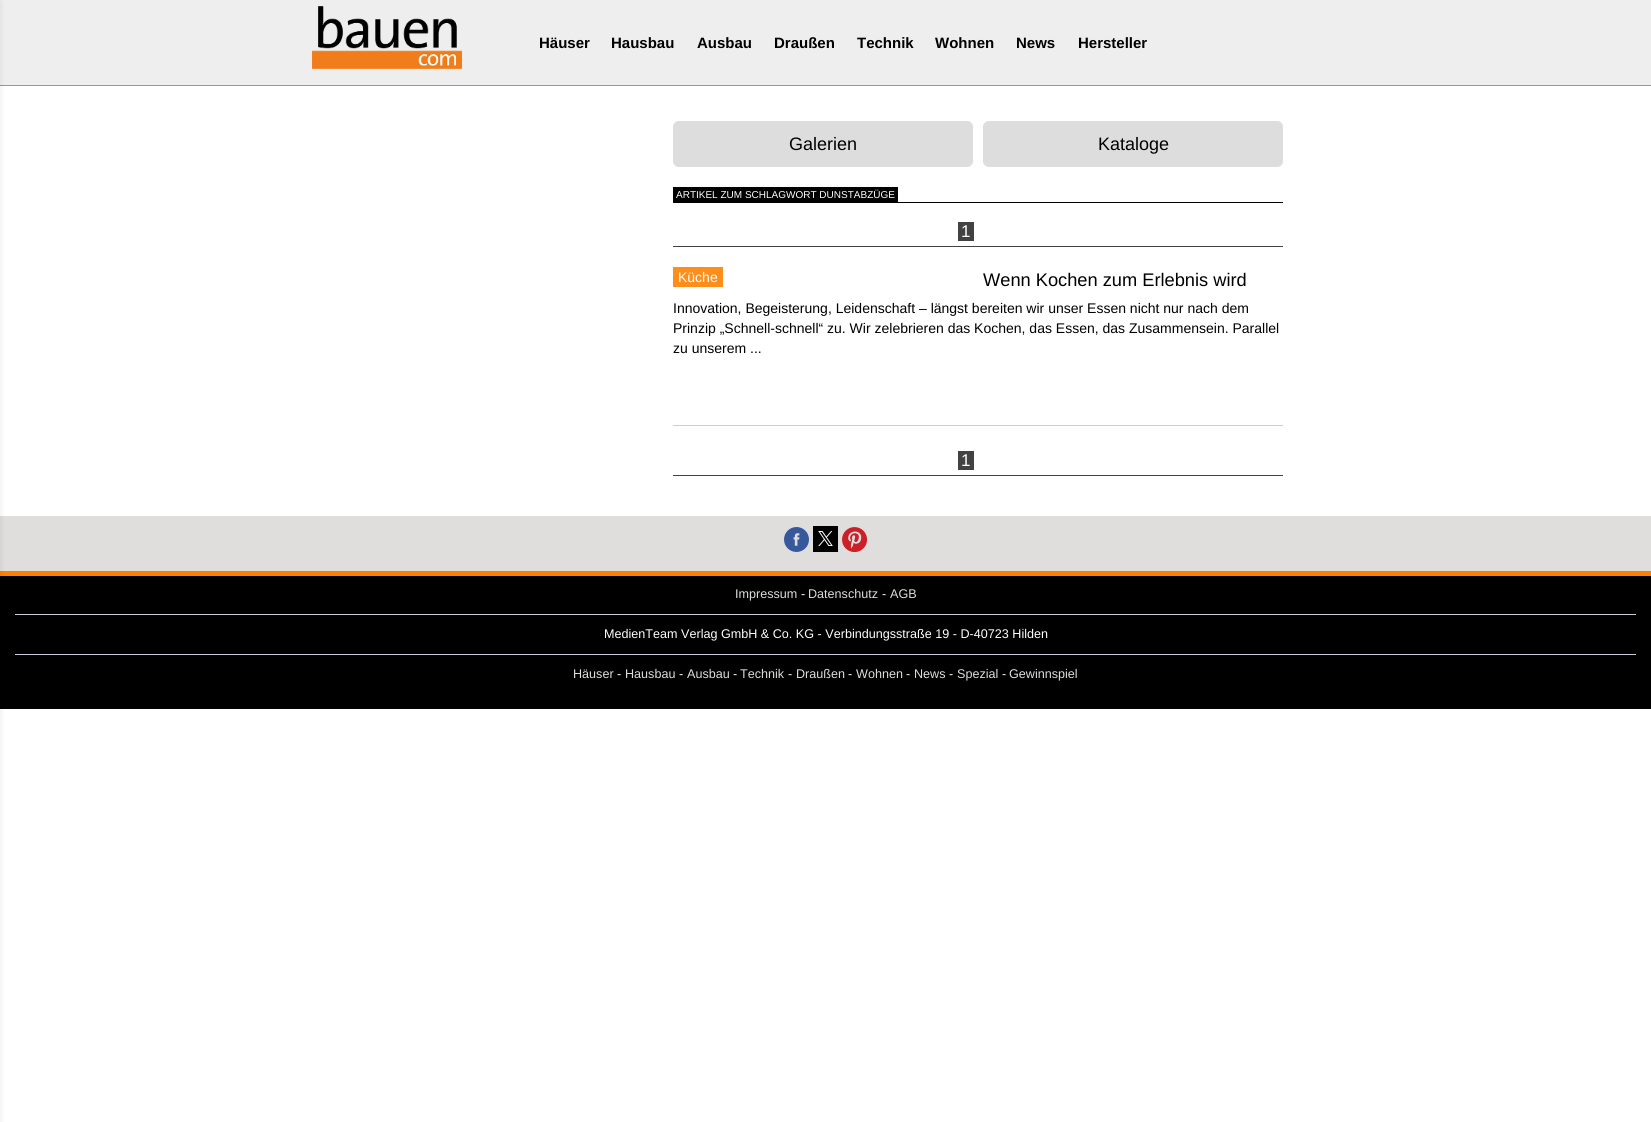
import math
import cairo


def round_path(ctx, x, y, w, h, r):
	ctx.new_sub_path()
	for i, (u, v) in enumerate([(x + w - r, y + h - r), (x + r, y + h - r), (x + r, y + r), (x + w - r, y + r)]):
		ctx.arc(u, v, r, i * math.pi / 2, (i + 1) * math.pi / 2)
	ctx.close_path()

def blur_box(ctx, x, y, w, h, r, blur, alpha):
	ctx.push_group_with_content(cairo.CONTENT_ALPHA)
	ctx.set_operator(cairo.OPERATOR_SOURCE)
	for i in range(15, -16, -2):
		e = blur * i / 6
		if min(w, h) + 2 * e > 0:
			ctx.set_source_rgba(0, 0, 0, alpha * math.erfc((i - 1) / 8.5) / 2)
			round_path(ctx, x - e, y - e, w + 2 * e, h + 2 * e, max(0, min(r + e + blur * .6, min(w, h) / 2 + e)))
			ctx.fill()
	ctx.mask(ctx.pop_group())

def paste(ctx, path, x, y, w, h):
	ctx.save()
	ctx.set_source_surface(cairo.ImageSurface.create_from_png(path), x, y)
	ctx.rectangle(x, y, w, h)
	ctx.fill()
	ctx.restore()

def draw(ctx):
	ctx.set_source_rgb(1, 1, 1)
	ctx.paint()
	ctx.set_source_rgb(0.933, 0.933, 0.933)
	ctx.rectangle(0, 0, 1651, 85)
	ctx.fill()
	ctx.set_source_rgb(1, 0.502, 0)
	ctx.rectangle(0, 85, 1651, 1)
	ctx.fill()
	ctx.set_source_rgb(0.878, 0.867, 0.867)
	ctx.rectangle(0, 516, 1651, 55)
	ctx.fill()
	ctx.set_source_rgb(1, 0.502, 0)
	ctx.rectangle(0, 571, 1651, 5)
	ctx.fill()
	ctx.set_source_rgb(0, 0, 0)
	ctx.rectangle(0, 576, 1651, 133)
	ctx.fill()
	ctx.set_source_rgb(0, 0, 0)
	blur_box(ctx, -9, 2, 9, 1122, 0, 3, 0.1)
	paste(ctx, 'media/1.png', 312, 6, 150, 63)
	ctx.select_font_face('Liberation Sans', cairo.FONT_SLANT_NORMAL, cairo.FONT_WEIGHT_BOLD)
	ctx.set_font_size(15)
	ctx.set_source_rgb(0, 0, 0)
	for x, y, s in [
		(539, 48, 'Häuser'),
		(611, 48, 'Hausbau'),
		(697, 48, 'Ausbau'),
		(774, 48, 'Draußen'),
		(857, 48, 'Technik'),
		(935, 48, 'Wohnen'),
		(1016, 48, 'News'),
		(1078, 48, 'Hersteller'),
	]:
		ctx.move_to(x, y)
		ctx.show_text(s)
	ctx.set_source_rgb(0.867, 0.867, 0.867)
	round_path(ctx, 673.5, 121.5, 299, 45, 5.5)
	ctx.fill_preserve()
	ctx.set_line_width(1)
	ctx.stroke()
	ctx.select_font_face('Liberation Sans')
	ctx.set_font_size(18)
	ctx.set_source_rgb(0, 0, 0)
	ctx.move_to(789, 150)
	ctx.show_text('Galerien')
	ctx.set_source_rgb(0.867, 0.867, 0.867)
	round_path(ctx, 983.5, 121.5, 299, 45, 5.5)
	ctx.fill_preserve()
	ctx.stroke()
	ctx.set_source_rgb(0, 0, 0)
	ctx.move_to(1098, 150)
	ctx.show_text('Kataloge')
	ctx.rectangle(673, 202, 610, 1)
	ctx.fill()
	ctx.rectangle(673, 187, 225, 15)
	ctx.fill()
	ctx.set_font_size(10)
	ctx.set_source_rgb(1, 1, 1)
	ctx.move_to(676, 198)
	ctx.show_text('ARTIKEL ZUM SCHLAGWORT DUNSTABZÜGE')
	ctx.set_source_rgb(0.259, 0.259, 0.259)
	ctx.rectangle(673, 246, 610, 1)
	ctx.fill()
	ctx.rectangle(958, 222, 16, 19)
	ctx.fill()
	ctx.set_font_size(17)
	ctx.set_source_rgb(1, 1, 1)
	ctx.move_to(961, 237)
	ctx.show_text('1')
	ctx.set_source_rgb(1, 0.553, 0.102)
	ctx.rectangle(673, 267, 50, 20)
	ctx.fill()
	ctx.set_font_size(14)
	ctx.set_source_rgb(1, 1, 1)
	ctx.move_to(678, 282)
	ctx.show_text('Küche')
	ctx.set_font_size(18.25)
	ctx.set_source_rgb(0, 0, 0)
	ctx.move_to(983, 286)
	ctx.show_text('Wenn Kochen zum Erlebnis wird')
	ctx.set_font_size(14)
	for x, y, s in [
		(673, 313, 'Innovation, Begeisterung, Leidenschaft – längst bereiten wir unser Essen nicht nur nach dem'),
		(673, 333, 'Prinzip „Schnell-schnell“ zu. Wir zelebrieren das Kochen, das Essen, das Zusammensein. Parallel'),
		(673, 353, 'zu unserem ...'),
	]:
		ctx.move_to(x, y)
		ctx.show_text(s)
	ctx.set_source_rgb(0.8, 0.8, 0.867)
	ctx.rectangle(673, 425, 610, 1)
	ctx.fill()
	ctx.set_source_rgb(0.259, 0.259, 0.259)
	ctx.rectangle(673, 475, 610, 1)
	ctx.rectangle(958, 451, 16, 19)
	ctx.fill()
	ctx.set_font_size(17)
	ctx.set_source_rgb(1, 1, 1)
	ctx.move_to(961, 466)
	ctx.show_text('1')
	paste(ctx, 'media/2.png', 784, 527, 25, 25)
	ctx.set_source_rgb(0, 0, 0)
	ctx.rectangle(813, 526, 25, 26)
	ctx.fill()
	paste(ctx, 'media/3.png', 842, 527, 25, 25)
	paste(ctx, 'media/4.png', 818, 531, 15, 15)
	ctx.set_font_size(12.6)
	ctx.set_source_rgb(0.867, 0.867, 0.867)
	ctx.move_to(735, 598)
	ctx.show_text('Impressum')
	ctx.set_source_rgb(1, 1, 1)
	ctx.move_to(801, 598)
	ctx.show_text('-')
	ctx.set_source_rgb(0.867, 0.867, 0.867)
	ctx.move_to(808, 598)
	ctx.show_text('Datenschutz')
	ctx.set_source_rgb(1, 1, 1)
	ctx.move_to(882, 598)
	ctx.show_text('-')
	ctx.set_source_rgb(0.867, 0.867, 0.867)
	ctx.move_to(890, 598)
	ctx.show_text('AGB')
	ctx.set_source_rgb(0.8, 0.8, 0.867)
	ctx.rectangle(15, 614, 1621, 1)
	ctx.fill()
	ctx.set_source_rgb(1, 1, 1)
	ctx.move_to(604, 638)
	ctx.show_text('MedienTeam Verlag GmbH & Co. KG - Verbindungsstraße 19 - D-40723 Hilden')
	ctx.set_source_rgb(0.8, 0.8, 0.867)
	ctx.rectangle(15, 654, 1621, 1)
	ctx.fill()
	ctx.set_source_rgb(0.867, 0.867, 0.867)
	ctx.move_to(573, 678)
	ctx.show_text('Häuser')
	ctx.set_source_rgb(1, 1, 1)
	ctx.move_to(617, 678)
	ctx.show_text('-')
	ctx.set_source_rgb(0.867, 0.867, 0.867)
	ctx.move_to(625, 678)
	ctx.show_text('Hausbau')
	ctx.set_source_rgb(1, 1, 1)
	ctx.move_to(679, 678)
	ctx.show_text('-')
	ctx.set_source_rgb(0.867, 0.867, 0.867)
	ctx.move_to(687, 678)
	ctx.show_text('Ausbau')
	ctx.set_source_rgb(1, 1, 1)
	ctx.move_to(733, 678)
	ctx.show_text('-')
	ctx.set_source_rgb(0.867, 0.867, 0.867)
	ctx.move_to(740, 678)
	ctx.show_text('Technik')
	ctx.set_source_rgb(1, 1, 1)
	ctx.move_to(788, 678)
	ctx.show_text('-')
	ctx.set_source_rgb(0.867, 0.867, 0.867)
	ctx.move_to(796, 678)
	ctx.show_text('Draußen')
	ctx.set_source_rgb(1, 1, 1)
	ctx.move_to(848, 678)
	ctx.show_text('-')
	ctx.set_source_rgb(0.867, 0.867, 0.867)
	ctx.move_to(856, 678)
	ctx.show_text('Wohnen')
	ctx.set_source_rgb(1, 1, 1)
	ctx.move_to(906, 678)
	ctx.show_text('-')
	ctx.set_source_rgb(0.867, 0.867, 0.867)
	ctx.move_to(914, 678)
	ctx.show_text('News')
	ctx.set_source_rgb(1, 1, 1)
	ctx.move_to(949, 678)
	ctx.show_text('-')
	ctx.set_source_rgb(0.867, 0.867, 0.867)
	ctx.move_to(957, 678)
	ctx.show_text('Spezial')
	ctx.set_source_rgb(1, 1, 1)
	ctx.move_to(1002, 678)
	ctx.show_text('-')
	ctx.set_source_rgb(0.867, 0.867, 0.867)
	ctx.move_to(1009, 678)
	ctx.show_text('Gewinnspiel')


surface = cairo.ImageSurface(cairo.FORMAT_RGB24, 1651, 1122)
ctx = cairo.Context(surface)
options = cairo.FontOptions()
options.set_hint_metrics(cairo.HINT_METRICS_OFF)
options.set_hint_style(cairo.HINT_STYLE_NONE)
ctx.set_font_options(options)
ctx.set_miter_limit(4)
draw(ctx)
surface.write_to_png('image.png')
